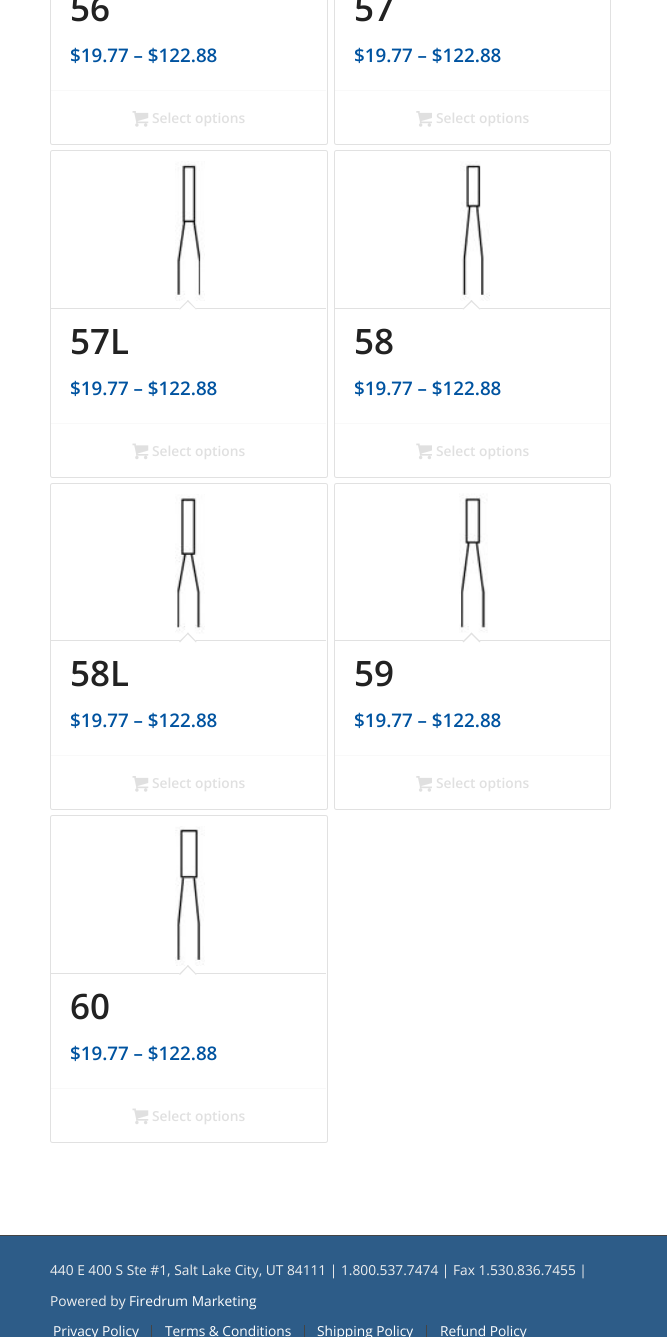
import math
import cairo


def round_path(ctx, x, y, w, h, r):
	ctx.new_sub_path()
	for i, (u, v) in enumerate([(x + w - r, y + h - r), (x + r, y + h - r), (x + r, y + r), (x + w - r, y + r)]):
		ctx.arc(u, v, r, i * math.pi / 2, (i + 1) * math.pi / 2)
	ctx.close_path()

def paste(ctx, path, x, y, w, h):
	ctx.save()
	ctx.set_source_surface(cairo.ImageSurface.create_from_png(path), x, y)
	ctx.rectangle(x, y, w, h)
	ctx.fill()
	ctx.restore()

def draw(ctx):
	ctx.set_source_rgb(1, 1, 1)
	ctx.paint()
	round_path(ctx, 50.5, -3.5, 277, 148, 2)
	ctx.set_source_rgb(0.882, 0.882, 0.882)
	ctx.set_line_width(1)
	ctx.stroke()
	ctx.select_font_face('Open Sans SemiBold')
	ctx.set_font_size(35)
	ctx.set_source_rgb(0.133, 0.133, 0.133)
	ctx.move_to(70, 21)
	ctx.show_text('56')
	ctx.set_font_size(18.75)
	ctx.set_source_rgb(0, 0.325, 0.627)
	ctx.move_to(70, 62)
	ctx.show_text('$19.77 – $122.88')
	ctx.set_source_rgb(0.976, 0.976, 0.976)
	ctx.rectangle(51, 90, 275, 1)
	ctx.fill()
	paste(ctx, 'media/1.png', 132, 111, 17, 16)
	ctx.set_font_size(13.75)
	ctx.set_source_rgb(0.878, 0.878, 0.878)
	ctx.move_to(152, 123)
	ctx.show_text('Select options')
	round_path(ctx, 334.5, -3.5, 276, 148, 2)
	ctx.set_source_rgb(0.882, 0.882, 0.882)
	ctx.stroke()
	ctx.set_font_size(35)
	ctx.set_source_rgb(0.133, 0.133, 0.133)
	ctx.move_to(354, 21)
	ctx.show_text('57')
	ctx.set_font_size(18.75)
	ctx.set_source_rgb(0, 0.325, 0.627)
	ctx.move_to(354, 62)
	ctx.show_text('$19.77 – $122.88')
	ctx.set_source_rgb(0.976, 0.976, 0.976)
	ctx.rectangle(335, 90, 275, 1)
	ctx.fill()
	paste(ctx, 'media/2.png', 416, 111, 16, 16)
	ctx.set_font_size(13.75)
	ctx.set_source_rgb(0.878, 0.878, 0.878)
	ctx.move_to(436, 123)
	ctx.show_text('Select options')
	round_path(ctx, 50.5, 150.5, 277, 327, 2)
	ctx.set_source_rgb(0.882, 0.882, 0.882)
	ctx.stroke()
	paste(ctx, 'media/3.png', 175, 161, 30, 140)
	ctx.rectangle(51, 308, 275, 1)
	ctx.fill()
	ctx.set_source_rgb(1, 1, 1)
	ctx.new_path()
	ctx.move_to(188, 300)
	ctx.line_to(196.5, 309)
	ctx.line_to(188, 317.5)
	ctx.line_to(179, 309)
	ctx.close_path()
	ctx.fill()
	ctx.set_source_rgb(0.882, 0.882, 0.882)
	ctx.new_path()
	ctx.move_to(188, 300)
	ctx.line_to(196.5, 309)
	ctx.line_to(196, 309.5)
	ctx.line_to(187, 301)
	ctx.close_path()
	ctx.fill()
	ctx.new_path()
	ctx.move_to(188, 300)
	ctx.line_to(188.5, 301)
	ctx.line_to(180, 309.5)
	ctx.line_to(179, 309)
	ctx.close_path()
	ctx.fill()
	ctx.set_font_size(35)
	ctx.set_source_rgb(0.133, 0.133, 0.133)
	ctx.move_to(70, 354)
	ctx.show_text('57L')
	ctx.set_font_size(18.75)
	ctx.set_source_rgb(0, 0.325, 0.627)
	ctx.move_to(70, 395)
	ctx.show_text('$19.77 – $122.88')
	ctx.set_source_rgb(0.976, 0.976, 0.976)
	ctx.rectangle(51, 423, 275, 1)
	ctx.fill()
	paste(ctx, 'media/4.png', 132, 443, 17, 17)
	ctx.set_font_size(13.75)
	ctx.set_source_rgb(0.878, 0.878, 0.878)
	ctx.move_to(152, 456)
	ctx.show_text('Select options')
	round_path(ctx, 334.5, 150.5, 276, 327, 2)
	ctx.set_source_rgb(0.882, 0.882, 0.882)
	ctx.stroke()
	paste(ctx, 'media/5.png', 460, 161, 30, 140)
	ctx.rectangle(335, 308, 275, 1)
	ctx.fill()
	ctx.set_source_rgb(1, 1, 1)
	ctx.new_path()
	ctx.move_to(471.5, 300)
	ctx.line_to(480.5, 309)
	ctx.line_to(471.5, 317.5)
	ctx.line_to(462.5, 309)
	ctx.close_path()
	ctx.fill()
	ctx.set_source_rgb(0.882, 0.882, 0.882)
	ctx.new_path()
	ctx.move_to(471.5, 300)
	ctx.line_to(480.5, 309)
	ctx.line_to(479.5, 309.5)
	ctx.line_to(470.5, 301)
	ctx.close_path()
	ctx.fill()
	ctx.new_path()
	ctx.move_to(471.5, 300)
	ctx.line_to(472.5, 301)
	ctx.line_to(463.5, 309.5)
	ctx.line_to(462.5, 309)
	ctx.close_path()
	ctx.fill()
	ctx.set_font_size(35)
	ctx.set_source_rgb(0.133, 0.133, 0.133)
	ctx.move_to(354, 354)
	ctx.show_text('58')
	ctx.set_font_size(18.75)
	ctx.set_source_rgb(0, 0.325, 0.627)
	ctx.move_to(354, 395)
	ctx.show_text('$19.77 – $122.88')
	ctx.set_source_rgb(0.976, 0.976, 0.976)
	ctx.rectangle(335, 423, 275, 1)
	ctx.fill()
	paste(ctx, 'media/6.png', 416, 443, 16, 17)
	ctx.set_font_size(13.75)
	ctx.set_source_rgb(0.878, 0.878, 0.878)
	ctx.move_to(436, 456)
	ctx.show_text('Select options')
	round_path(ctx, 50.5, 483.5, 277, 326, 2)
	ctx.set_source_rgb(0.882, 0.882, 0.882)
	ctx.stroke()
	paste(ctx, 'media/7.png', 175, 494, 30, 140)
	ctx.rectangle(51, 640, 275, 1)
	ctx.fill()
	ctx.set_source_rgb(1, 1, 1)
	ctx.new_path()
	ctx.move_to(188, 632.5)
	ctx.line_to(196.5, 641.5)
	ctx.line_to(188, 650.5)
	ctx.line_to(179, 641.5)
	ctx.close_path()
	ctx.fill()
	ctx.set_source_rgb(0.882, 0.882, 0.882)
	ctx.new_path()
	ctx.move_to(188, 632.5)
	ctx.line_to(196.5, 641.5)
	ctx.line_to(196, 642.5)
	ctx.line_to(187, 633.5)
	ctx.close_path()
	ctx.fill()
	ctx.new_path()
	ctx.move_to(188, 632.5)
	ctx.line_to(188.5, 633.5)
	ctx.line_to(180, 642.5)
	ctx.line_to(179, 641.5)
	ctx.close_path()
	ctx.fill()
	ctx.set_font_size(35)
	ctx.set_source_rgb(0.133, 0.133, 0.133)
	ctx.move_to(70, 686)
	ctx.show_text('58L')
	ctx.set_font_size(18.75)
	ctx.set_source_rgb(0, 0.325, 0.627)
	ctx.move_to(70, 727)
	ctx.show_text('$19.77 – $122.88')
	ctx.set_source_rgb(0.976, 0.976, 0.976)
	ctx.rectangle(51, 755, 275, 1)
	ctx.fill()
	paste(ctx, 'media/1.png', 132, 776, 17, 16)
	ctx.set_font_size(13.75)
	ctx.set_source_rgb(0.878, 0.878, 0.878)
	ctx.move_to(152, 788)
	ctx.show_text('Select options')
	round_path(ctx, 334.5, 483.5, 276, 326, 2)
	ctx.set_source_rgb(0.882, 0.882, 0.882)
	ctx.stroke()
	paste(ctx, 'media/8.png', 459, 493, 29, 140)
	ctx.rectangle(335, 640, 275, 1)
	ctx.fill()
	ctx.set_source_rgb(1, 1, 1)
	ctx.new_path()
	ctx.move_to(471.5, 632.5)
	ctx.line_to(480.5, 641.5)
	ctx.line_to(471.5, 650.5)
	ctx.line_to(462.5, 641.5)
	ctx.close_path()
	ctx.fill()
	ctx.set_source_rgb(0.882, 0.882, 0.882)
	ctx.new_path()
	ctx.move_to(471.5, 632.5)
	ctx.line_to(480.5, 641.5)
	ctx.line_to(479.5, 642.5)
	ctx.line_to(470.5, 633.5)
	ctx.close_path()
	ctx.fill()
	ctx.new_path()
	ctx.move_to(471.5, 632.5)
	ctx.line_to(472.5, 633.5)
	ctx.line_to(463.5, 642.5)
	ctx.line_to(462.5, 641.5)
	ctx.close_path()
	ctx.fill()
	ctx.set_font_size(35)
	ctx.set_source_rgb(0.133, 0.133, 0.133)
	ctx.move_to(354, 686)
	ctx.show_text('59')
	ctx.set_font_size(18.75)
	ctx.set_source_rgb(0, 0.325, 0.627)
	ctx.move_to(354, 727)
	ctx.show_text('$19.77 – $122.88')
	ctx.set_source_rgb(0.976, 0.976, 0.976)
	ctx.rectangle(335, 755, 275, 1)
	ctx.fill()
	paste(ctx, 'media/2.png', 416, 776, 16, 16)
	ctx.set_font_size(13.75)
	ctx.set_source_rgb(0.878, 0.878, 0.878)
	ctx.move_to(436, 788)
	ctx.show_text('Select options')
	round_path(ctx, 50.5, 815.5, 277, 327, 2)
	ctx.set_source_rgb(0.882, 0.882, 0.882)
	ctx.stroke()
	paste(ctx, 'media/9.png', 175, 826, 30, 140)
	ctx.rectangle(51, 973, 275, 1)
	ctx.fill()
	ctx.set_source_rgb(1, 1, 1)
	ctx.new_path()
	ctx.move_to(188, 965)
	ctx.line_to(196.5, 974)
	ctx.line_to(188, 983)
	ctx.line_to(179, 974)
	ctx.close_path()
	ctx.fill()
	ctx.set_source_rgb(0.882, 0.882, 0.882)
	ctx.new_path()
	ctx.move_to(188, 965)
	ctx.line_to(196.5, 974)
	ctx.line_to(196, 975)
	ctx.line_to(187, 966)
	ctx.close_path()
	ctx.fill()
	ctx.new_path()
	ctx.move_to(188, 965)
	ctx.line_to(188.5, 966)
	ctx.line_to(180, 975)
	ctx.line_to(179, 974)
	ctx.close_path()
	ctx.fill()
	ctx.set_font_size(35)
	ctx.set_source_rgb(0.133, 0.133, 0.133)
	ctx.move_to(70, 1019)
	ctx.show_text('60')
	ctx.set_font_size(18.75)
	ctx.set_source_rgb(0, 0.325, 0.627)
	ctx.move_to(70, 1060)
	ctx.show_text('$19.77 – $122.88')
	ctx.set_source_rgb(0.976, 0.976, 0.976)
	ctx.rectangle(51, 1088, 275, 1)
	ctx.fill()
	paste(ctx, 'media/4.png', 132, 1108, 17, 17)
	ctx.set_font_size(13.75)
	ctx.set_source_rgb(0.878, 0.878, 0.878)
	ctx.move_to(152, 1121)
	ctx.show_text('Select options')
	ctx.set_source_rgb(0.176, 0.361, 0.533)
	ctx.rectangle(0, 1236, 667, 101)
	ctx.fill()
	ctx.set_source_rgb(0.267, 0.267, 0.267)
	ctx.rectangle(0, 1235, 667, 1)
	ctx.fill()
	ctx.select_font_face('Open Sans')
	ctx.set_source_rgb(0.933, 0.933, 0.933)
	ctx.move_to(50, 1275)
	ctx.show_text('440 E 400 S Ste #1, Salt Lake City, UT 84111 | 1.800.537.7474 | Fax 1.530.836.7455 |')
	ctx.move_to(50, 1306)
	ctx.show_text('Powered by')
	ctx.set_source_rgb(1, 1, 1)
	ctx.move_to(129, 1306)
	ctx.show_text('Firedrum Marketing')
	ctx.move_to(53, 1336)
	ctx.show_text('Privacy Policy')
	ctx.set_source_rgb(0.267, 0.267, 0.267)
	ctx.rectangle(151, 1325, 1, 12)
	ctx.fill()
	ctx.set_source_rgb(1, 1, 1)
	ctx.move_to(165, 1336)
	ctx.show_text('Terms & Conditions')
	ctx.set_source_rgb(0.267, 0.267, 0.267)
	ctx.rectangle(304, 1325, 1, 12)
	ctx.fill()
	ctx.set_source_rgb(1, 1, 1)
	ctx.move_to(317, 1336)
	ctx.show_text('Shipping Policy')
	ctx.set_source_rgb(0.267, 0.267, 0.267)
	ctx.rectangle(426, 1325, 1, 12)
	ctx.fill()
	ctx.set_source_rgb(1, 1, 1)
	ctx.move_to(440, 1336)
	ctx.show_text('Refund Policy')


surface = cairo.ImageSurface(cairo.FORMAT_RGB24, 667, 1337)
ctx = cairo.Context(surface)
options = cairo.FontOptions()
options.set_hint_metrics(cairo.HINT_METRICS_OFF)
options.set_hint_style(cairo.HINT_STYLE_NONE)
ctx.set_font_options(options)
ctx.set_miter_limit(4)
draw(ctx)
surface.write_to_png('image.png')
